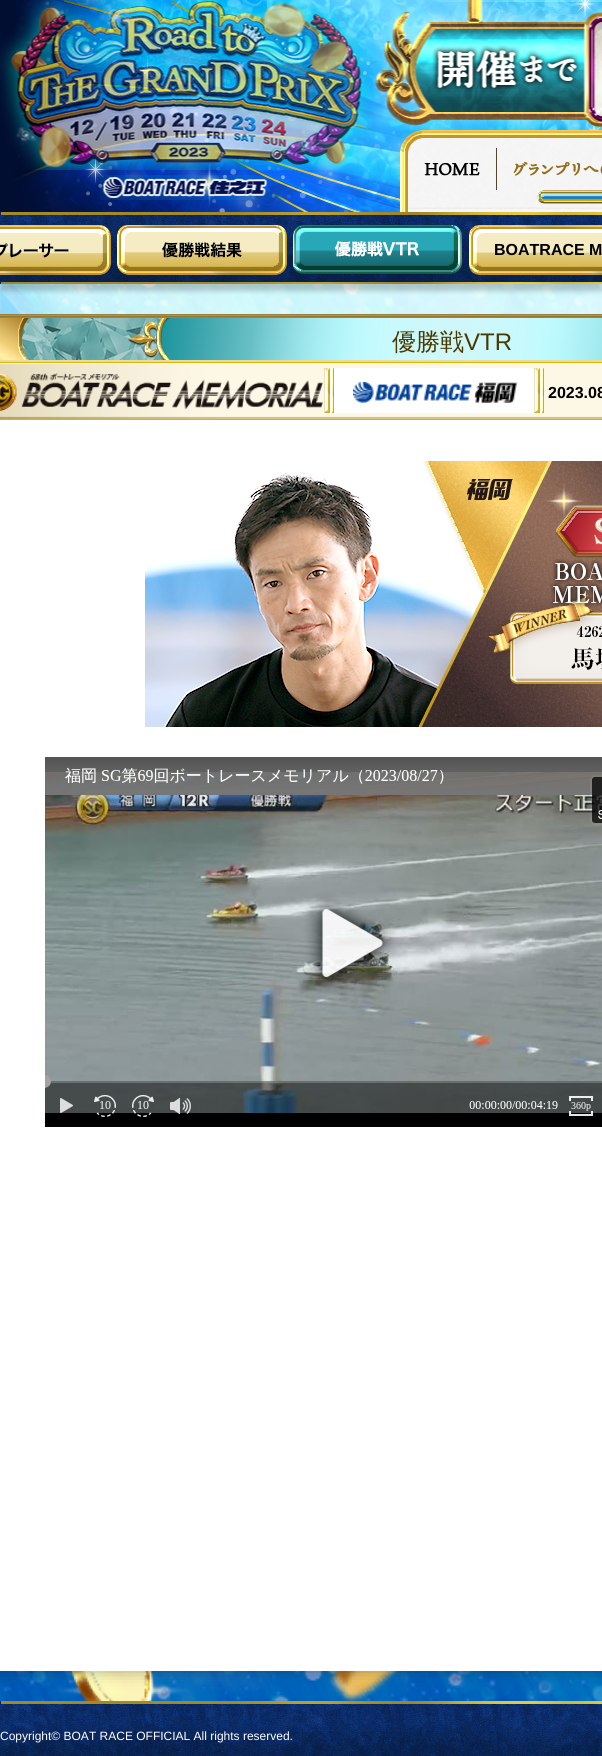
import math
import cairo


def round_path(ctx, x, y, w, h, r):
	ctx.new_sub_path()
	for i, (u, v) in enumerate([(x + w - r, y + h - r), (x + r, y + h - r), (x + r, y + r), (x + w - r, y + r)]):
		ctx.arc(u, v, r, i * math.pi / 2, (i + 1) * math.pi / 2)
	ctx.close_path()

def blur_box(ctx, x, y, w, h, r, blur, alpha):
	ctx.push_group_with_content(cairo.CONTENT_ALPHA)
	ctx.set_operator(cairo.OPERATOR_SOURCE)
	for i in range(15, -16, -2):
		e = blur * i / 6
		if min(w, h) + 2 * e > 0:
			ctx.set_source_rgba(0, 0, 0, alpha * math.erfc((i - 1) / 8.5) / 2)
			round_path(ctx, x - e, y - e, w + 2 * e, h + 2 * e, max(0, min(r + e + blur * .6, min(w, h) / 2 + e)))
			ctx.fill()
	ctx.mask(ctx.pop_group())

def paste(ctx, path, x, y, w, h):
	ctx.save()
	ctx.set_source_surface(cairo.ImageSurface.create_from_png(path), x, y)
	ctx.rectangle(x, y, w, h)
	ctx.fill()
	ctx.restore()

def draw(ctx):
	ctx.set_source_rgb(1, 1, 1)
	ctx.paint()
	paste(ctx, 'media/1.png', 0, 284, 602, 1417)
	ctx.set_source_rgb(0.004, 0.051, 0.192)
	ctx.rectangle(0, 0, 14, 212)
	ctx.fill()
	paste(ctx, 'media/2.png', 14, 0, 588, 212)
	paste(ctx, 'media/4.png', 373, 0, 229, 130)
	paste(ctx, 'media/3.png', 0, 0, 374, 170)
	paste(ctx, 'media/5.png', 100, 175, 170, 25)
	ctx.set_source_rgb(0, 0, 0)
	blur_box(ctx, 0, 219, 602, 72, 0, 2.5, 0.2)
	paste(ctx, 'media/6.png', 400, 130, 202, 82)
	paste(ctx, 'media/7.png', 513, 162, 89, 42)
	paste(ctx, 'media/8.png', 0, 212, 602, 72)
	blur_box(ctx, -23, 426, 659, 1239, 4, 10, 0.6)
	ctx.set_source_rgb(1, 1, 1)
	ctx.rectangle(0, 420, 602, 1251)
	ctx.fill()
	paste(ctx, 'media/9.png', 0, 225, 111, 50)
	paste(ctx, 'media/10.png', 117, 225, 170, 50)
	paste(ctx, 'media/11.png', 293, 225, 169, 49)
	paste(ctx, 'media/12.png', 469, 225, 133, 50)
	ctx.select_font_face('Liberation Sans', cairo.FONT_SLANT_NORMAL, cairo.FONT_WEIGHT_BOLD)
	ctx.set_font_size(16)
	ctx.set_source_rgb(0, 0, 0)
	ctx.move_to(494, 255)
	ctx.show_text('BOATRACE M')
	paste(ctx, 'media/13.png', 0, 314, 602, 48)
	ctx.select_font_face('WenQuanYi Zen Hei Medium')
	ctx.set_font_size(24)
	ctx.set_source_rgb(0.29, 0.22, 0)
	ctx.move_to(392, 350)
	ctx.show_text('優勝戦')
	ctx.select_font_face('Liberation Sans')
	ctx.move_to(464, 350)
	ctx.show_text('VTR')
	paste(ctx, 'media/14.png', 0, 363, 602, 56)
	ctx.rectangle(-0.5, 362.5, 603, 57)
	ctx.set_source_rgb(0.89, 0.702, 0)
	ctx.set_line_width(1)
	ctx.stroke()
	paste(ctx, 'media/15.png', 0, 373, 323, 38)
	paste(ctx, 'media/16.png', 353, 382, 165, 21)
	ctx.select_font_face('Liberation Sans', cairo.FONT_SLANT_NORMAL, cairo.FONT_WEIGHT_BOLD)
	ctx.set_font_size(16)
	ctx.set_source_rgb(0, 0, 0)
	ctx.move_to(548, 398)
	ctx.show_text('2023.08')
	paste(ctx, 'media/17.png', 145, 461, 457, 266)
	paste(ctx, 'media/18.png', 45, 757, 557, 370)
	paste(ctx, 'media/19.png', 0, 1701, 602, 55)
	ctx.select_font_face('Liberation Sans')
	ctx.set_font_size(12)
	ctx.set_source_rgb(1, 1, 1)
	ctx.move_to(0, 1740)
	ctx.show_text('Copyright© BOAT RACE OFFICIAL All rights reserved.')


surface = cairo.ImageSurface(cairo.FORMAT_RGB24, 602, 1756)
ctx = cairo.Context(surface)
options = cairo.FontOptions()
options.set_hint_metrics(cairo.HINT_METRICS_OFF)
options.set_hint_style(cairo.HINT_STYLE_NONE)
ctx.set_font_options(options)
ctx.set_miter_limit(4)
draw(ctx)
surface.write_to_png('image.png')
